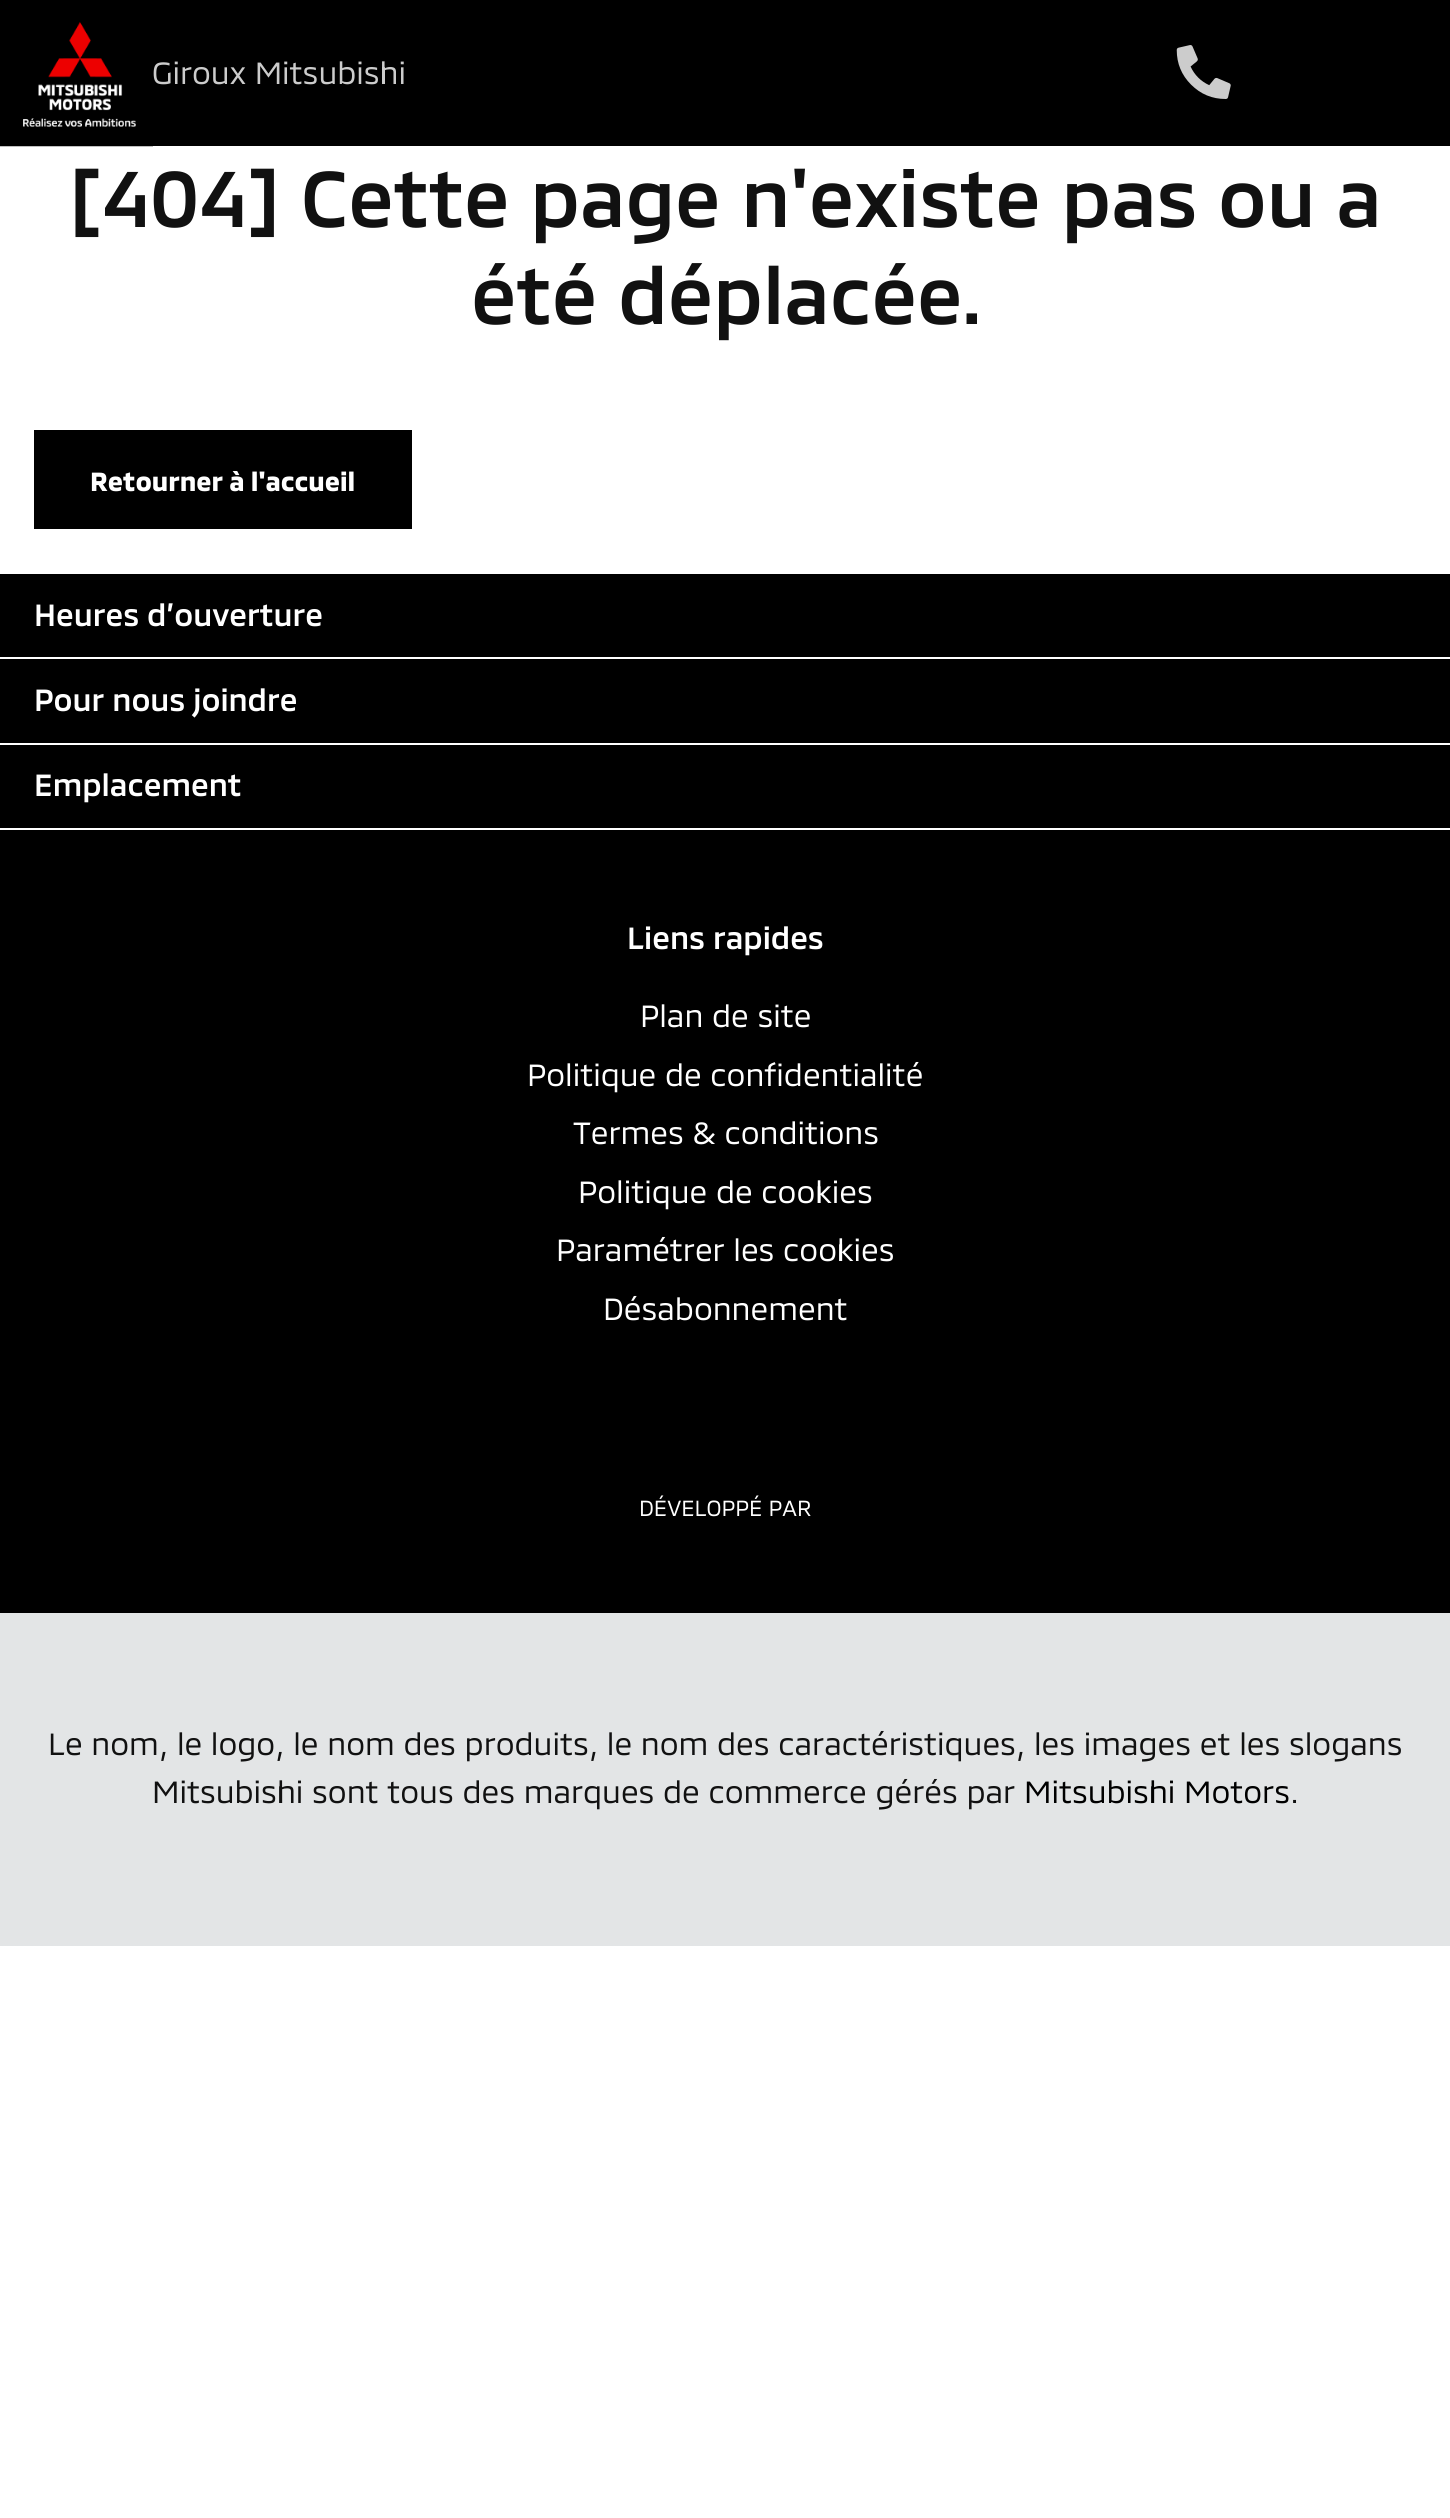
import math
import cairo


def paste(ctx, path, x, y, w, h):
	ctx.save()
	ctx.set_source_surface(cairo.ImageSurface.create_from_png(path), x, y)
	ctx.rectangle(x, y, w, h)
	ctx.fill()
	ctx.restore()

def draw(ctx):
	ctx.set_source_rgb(1, 1, 1)
	ctx.paint()
	ctx.set_source_rgb(0, 0, 0)
	ctx.rectangle(0, 0, 1450, 146)
	ctx.fill()
	paste(ctx, 'media/1.png', 0, 22, 153, 125)
	ctx.select_font_face('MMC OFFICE')
	ctx.set_font_size(31.5)
	ctx.set_source_rgb(0.8, 0.8, 0.8)
	ctx.move_to(152, 84)
	ctx.show_text('Giroux Mitsubishi')
	paste(ctx, 'media/2.png', 1176, 45, 55, 54)
	ctx.select_font_face('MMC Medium')
	ctx.set_font_size(81)
	ctx.set_source_rgb(0.067, 0.067, 0.067)
	ctx.move_to(69, 227)
	ctx.show_text('[404] Cette page n\'existe pas ou a')
	ctx.move_to(471, 324)
	ctx.show_text('été déplacée.')
	ctx.set_source_rgb(0, 0, 0)
	ctx.rectangle(34, 430, 378, 99)
	ctx.fill()
	ctx.select_font_face('MMC OFFICE', cairo.FONT_SLANT_NORMAL, cairo.FONT_WEIGHT_BOLD)
	ctx.set_font_size(27)
	ctx.set_source_rgb(1, 1, 1)
	ctx.move_to(90, 491)
	ctx.show_text('Retourner à l\'accueil')
	ctx.set_source_rgb(0, 0, 0)
	ctx.rectangle(0, 574, 1450, 1039)
	ctx.fill()
	ctx.set_source_rgb(1, 1, 1)
	ctx.rectangle(0, 657, 1450, 2)
	ctx.fill()
	ctx.select_font_face('MMC Medium')
	ctx.set_font_size(31.5)
	ctx.move_to(34, 626)
	ctx.show_text('Heures d’ouverture')
	ctx.rectangle(0, 743, 1450, 2)
	ctx.fill()
	ctx.move_to(34, 711)
	ctx.show_text('Pour nous joindre')
	ctx.rectangle(0, 828, 1450, 2)
	ctx.fill()
	ctx.move_to(34, 796)
	ctx.show_text('Emplacement')
	ctx.move_to(627, 949)
	ctx.show_text('Liens rapides')
	ctx.select_font_face('MMC OFFICE')
	for x, y, s in [
		(640, 1027, 'Plan de site'),
		(527, 1086, 'Politique de confidentialité'),
		(573, 1144, 'Termes & conditions'),
		(578, 1203, 'Politique de cookies'),
		(556, 1261, 'Paramétrer les cookies'),
		(603, 1320, 'Désabonnement'),
	]:
		ctx.move_to(x, y)
		ctx.show_text(s)
	ctx.set_font_size(22.5)
	ctx.move_to(639, 1516)
	ctx.show_text('DÉVELOPPÉ PAR')
	ctx.set_source_rgb(0.89, 0.898, 0.902)
	ctx.rectangle(0, 1613, 1450, 333)
	ctx.fill()
	ctx.set_font_size(31.5)
	ctx.set_source_rgb(0.067, 0.067, 0.067)
	ctx.move_to(48, 1755)
	ctx.show_text('Le nom, le logo, le nom des produits, le nom des caractéristiques, les images et les slogans')
	ctx.move_to(152, 1803)
	ctx.show_text('Mitsubishi sont tous des marques de commerce gérés par')
	ctx.set_source_rgb(0, 0, 0)
	ctx.move_to(1024, 1803)
	ctx.show_text('Mitsubishi Motors')
	ctx.set_source_rgb(0.067, 0.067, 0.067)
	ctx.move_to(1290, 1803)
	ctx.show_text('.')


surface = cairo.ImageSurface(cairo.FORMAT_RGB24, 1450, 2518)
ctx = cairo.Context(surface)
options = cairo.FontOptions()
options.set_hint_metrics(cairo.HINT_METRICS_OFF)
options.set_hint_style(cairo.HINT_STYLE_NONE)
ctx.set_font_options(options)
ctx.set_miter_limit(4)
draw(ctx)
surface.write_to_png('image.png')
